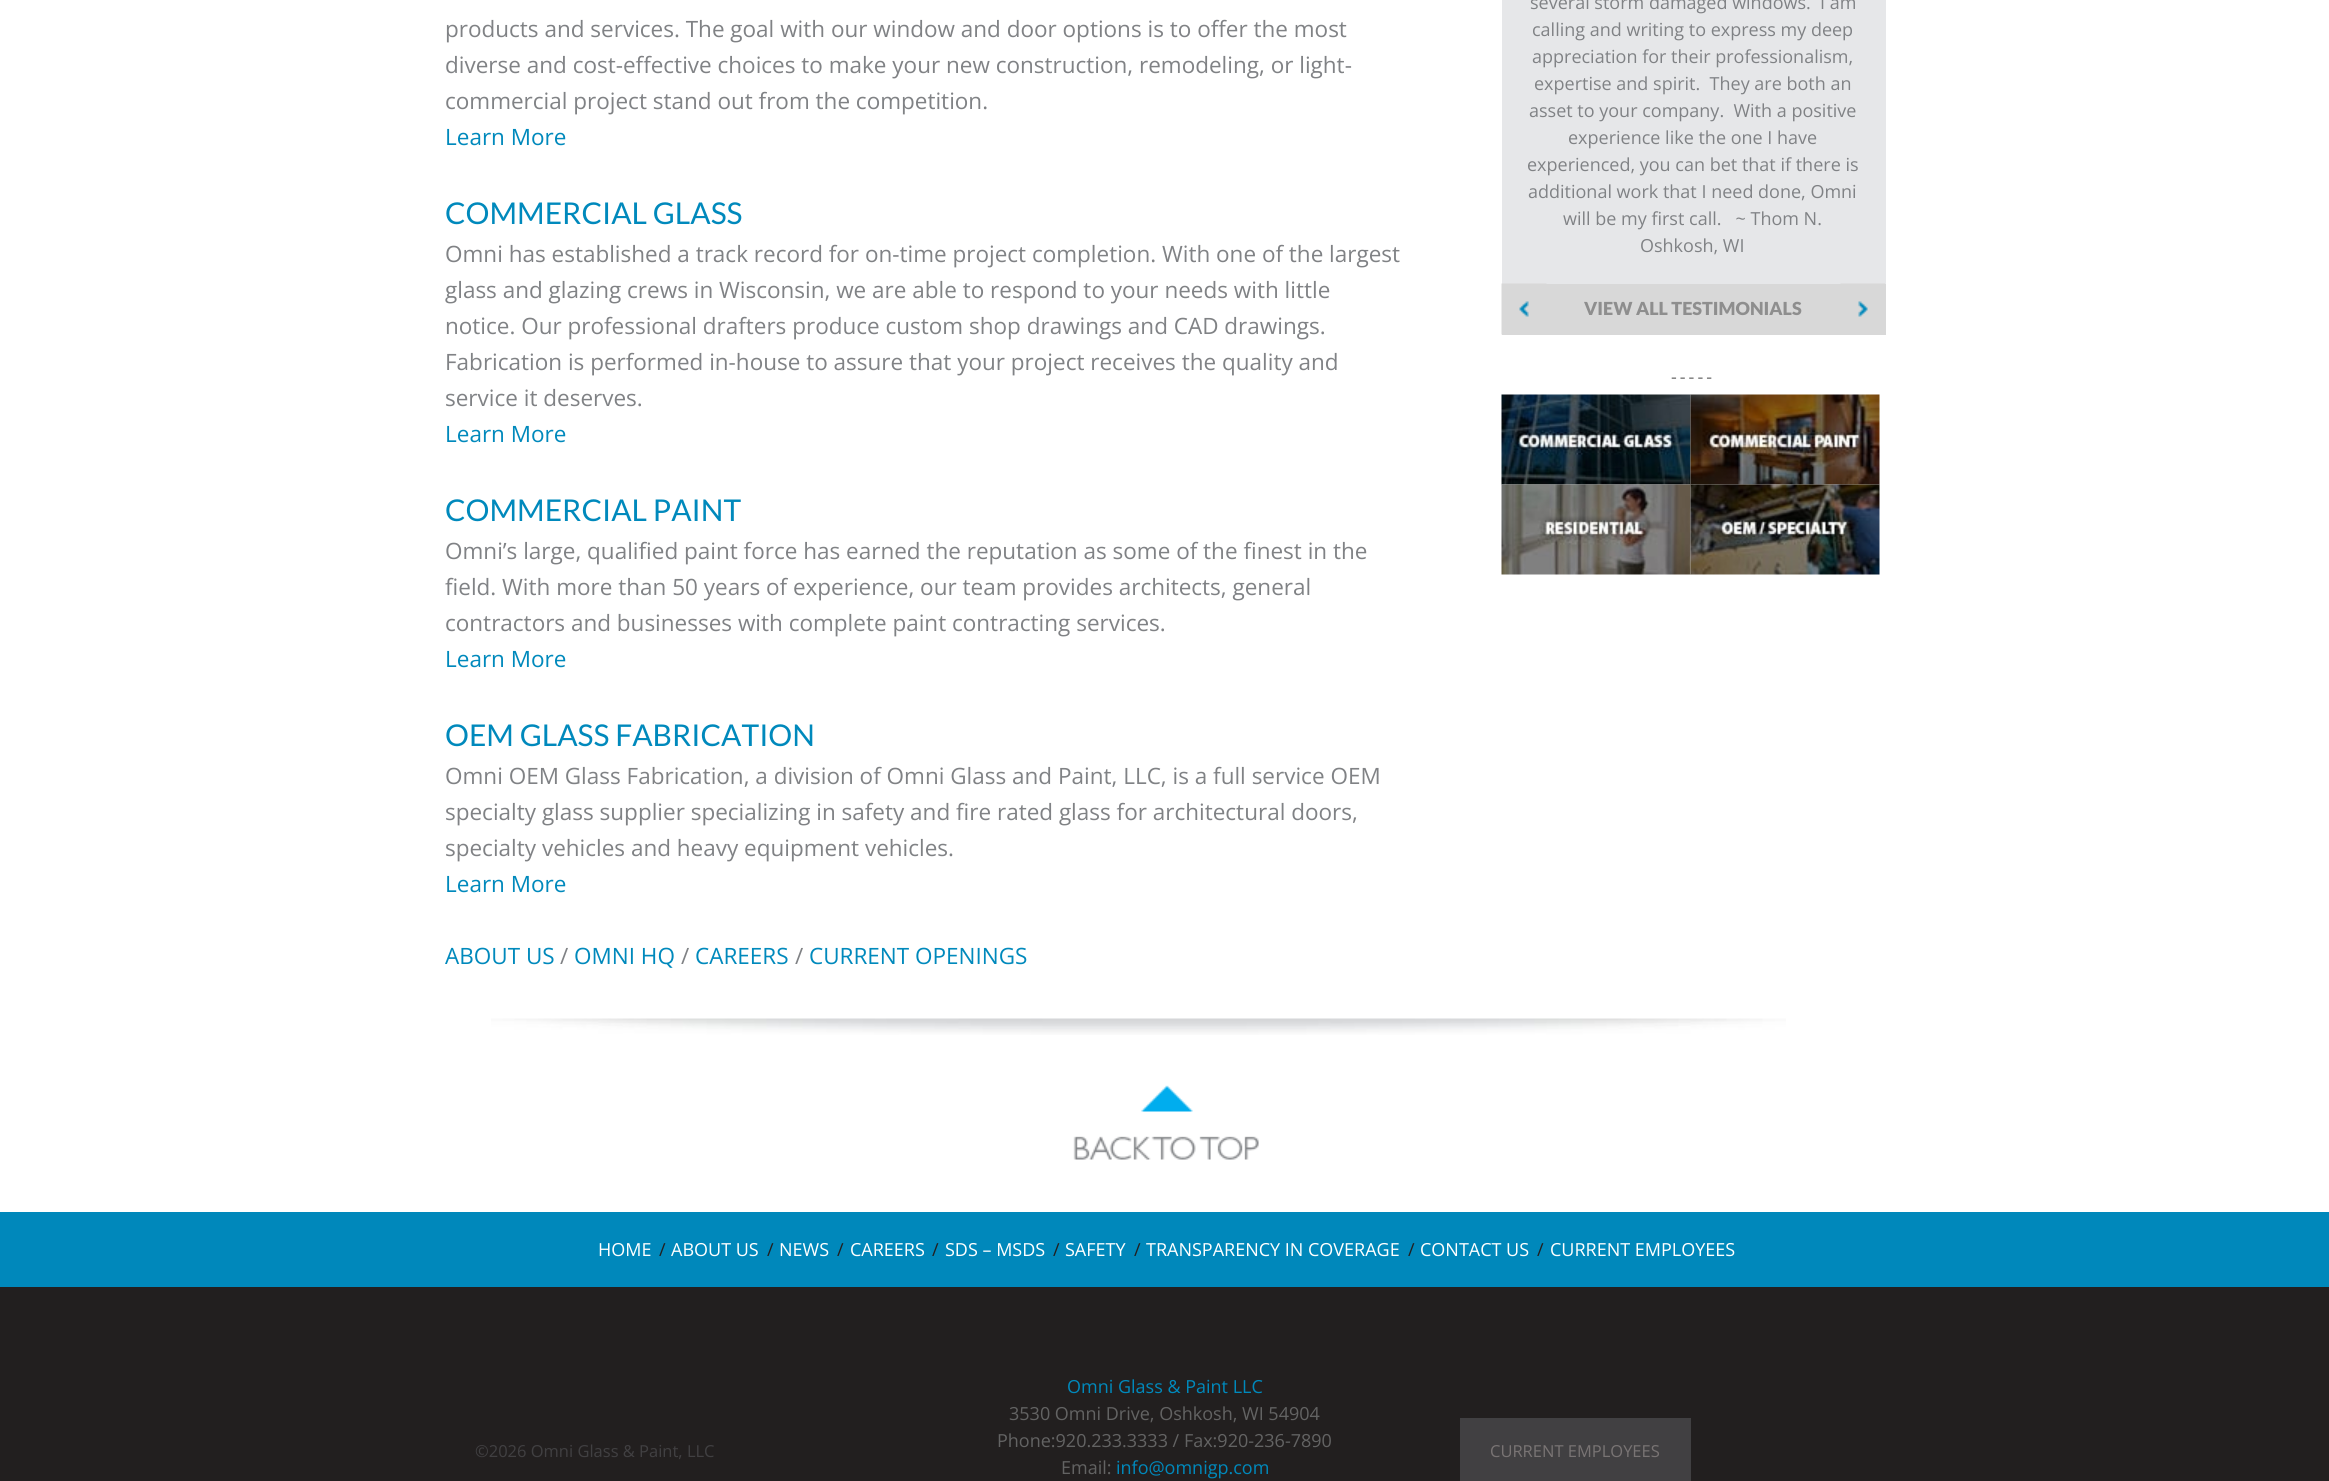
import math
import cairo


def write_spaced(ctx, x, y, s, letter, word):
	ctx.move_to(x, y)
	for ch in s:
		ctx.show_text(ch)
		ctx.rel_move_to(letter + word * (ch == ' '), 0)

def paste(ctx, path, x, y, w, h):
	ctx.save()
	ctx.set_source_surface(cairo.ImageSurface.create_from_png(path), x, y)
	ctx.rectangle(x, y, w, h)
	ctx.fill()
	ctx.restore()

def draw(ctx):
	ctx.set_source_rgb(1, 1, 1)
	ctx.paint()
	paste(ctx, 'media/1.png', 491, 1018, 1295, 17)
	ctx.select_font_face('Open Sans')
	ctx.set_font_size(22.5)
	ctx.set_source_rgb(0.502, 0.51, 0.522)
	for x, y, s in [
		(445, 37, 'products and services. The goal with our window and door options is to offer the most'),
		(445, 73, 'diverse and cost-effective choices to make your new construction, remodeling, or light-'),
		(445, 109, 'commercial project stand out from the competition.'),
	]:
		ctx.move_to(x, y)
		ctx.show_text(s)
	ctx.set_source_rgb(0, 0.537, 0.737)
	ctx.move_to(445, 145)
	ctx.show_text('Learn More')
	ctx.select_font_face('Lato')
	ctx.set_font_size(30)
	ctx.move_to(445, 224)
	ctx.show_text('COMMERCIAL GLASS')
	ctx.select_font_face('Open Sans')
	ctx.set_font_size(22.5)
	ctx.set_source_rgb(0.502, 0.51, 0.522)
	for x, y, s in [
		(445, 262, 'Omni has established a track record for on-time project completion. With one of the largest'),
		(445, 298, 'glass and glazing crews in Wisconsin, we are able to respond to your needs with little'),
		(445, 334, 'notice. Our professional drafters produce custom shop drawings and CAD drawings.'),
		(445, 370, 'Fabrication is performed in-house to assure that your project receives the quality and'),
		(445, 406, 'service it deserves.'),
	]:
		ctx.move_to(x, y)
		ctx.show_text(s)
	ctx.set_source_rgb(0, 0.537, 0.737)
	ctx.move_to(445, 442)
	ctx.show_text('Learn More')
	ctx.select_font_face('Lato')
	ctx.set_font_size(30)
	ctx.move_to(445, 521)
	ctx.show_text('COMMERCIAL PAINT')
	ctx.select_font_face('Open Sans')
	ctx.set_font_size(22.5)
	ctx.set_source_rgb(0.502, 0.51, 0.522)
	for x, y, s in [
		(445, 559, 'Omni’s large, qualified paint force has earned the reputation as some of the finest in the'),
		(445, 595, 'field. With more than 50 years of experience, our team provides architects, general'),
		(445, 631, 'contractors and businesses with complete paint contracting services.'),
	]:
		ctx.move_to(x, y)
		ctx.show_text(s)
	ctx.set_source_rgb(0, 0.537, 0.737)
	ctx.move_to(445, 667)
	ctx.show_text('Learn More')
	ctx.select_font_face('Lato')
	ctx.set_font_size(30)
	ctx.move_to(445, 746)
	ctx.show_text('OEM GLASS FABRICATION')
	ctx.select_font_face('Open Sans')
	ctx.set_font_size(22.5)
	ctx.set_source_rgb(0.502, 0.51, 0.522)
	for x, y, s in [
		(445, 784, 'Omni OEM Glass Fabrication, a division of Omni Glass and Paint, LLC, is a full service OEM'),
		(445, 820, 'specialty glass supplier specializing in safety and fire rated glass for architectural doors,'),
		(445, 856, 'specialty vehicles and heavy equipment vehicles.'),
	]:
		ctx.move_to(x, y)
		ctx.show_text(s)
	ctx.set_source_rgb(0, 0.537, 0.737)
	ctx.move_to(445, 892)
	ctx.show_text('Learn More')
	ctx.move_to(445, 964)
	ctx.show_text('ABOUT US')
	ctx.set_source_rgb(0.502, 0.51, 0.522)
	ctx.move_to(560, 964)
	ctx.show_text('/')
	ctx.set_source_rgb(0, 0.537, 0.737)
	ctx.move_to(574, 964)
	ctx.show_text('OMNI HQ')
	ctx.set_source_rgb(0.502, 0.51, 0.522)
	ctx.move_to(681, 964)
	ctx.show_text('/')
	ctx.set_source_rgb(0, 0.537, 0.737)
	ctx.move_to(695, 964)
	ctx.show_text('CAREERS')
	ctx.set_source_rgb(0.502, 0.51, 0.522)
	ctx.move_to(795, 964)
	ctx.show_text('/')
	ctx.set_source_rgb(0, 0.537, 0.737)
	ctx.move_to(809, 964)
	ctx.show_text('CURRENT OPENINGS')
	ctx.set_source_rgb(0.902, 0.906, 0.914)
	ctx.rectangle(1502, 0, 384, 284)
	ctx.fill()
	ctx.set_font_size(18)
	ctx.set_source_rgb(0.502, 0.51, 0.522)
	for x, y, s in [
		(1530, 9, 'several storm damaged windows.  I am'),
		(1532, 36, 'calling and writing to express my deep'),
		(1532, 63, 'appreciation for their professionalism,'),
		(1534, 90, 'expertise and spirit.  They are both an'),
		(1529, 117, 'asset to your company.  With a positive'),
		(1568, 144, 'experience like the one I have'),
		(1527, 171, 'experienced, you can bet that if there is'),
		(1528, 198, 'additional work that I need done, Omni'),
		(1563, 225, 'will be my first call.   ~ Thom N.'),
		(1640, 252, 'Oshkosh, WI'),
	]:
		ctx.move_to(x, y)
		ctx.show_text(s)
	ctx.set_source_rgb(0.847, 0.847, 0.847)
	ctx.rectangle(1502, 284, 384, 51)
	ctx.fill()
	paste(ctx, 'media/2.png', 1501, 283, 46, 52)
	ctx.select_font_face('Lato Black')
	ctx.set_source_rgb(0.557, 0.557, 0.557)
	ctx.move_to(1584, 315)
	ctx.show_text('VIEW ALL TESTIMONIALS')
	paste(ctx, 'media/3.png', 1840, 283, 45, 34)
	ctx.select_font_face('Open Sans')
	ctx.set_source_rgb(0.427, 0.427, 0.427)
	write_spaced(ctx, 1671, 383, '-----', 3, 0)
	paste(ctx, 'media/4.png', 1501, 394, 190, 91)
	paste(ctx, 'media/5.png', 1690, 394, 190, 91)
	paste(ctx, 'media/6.png', 1501, 484, 190, 91)
	paste(ctx, 'media/7.png', 1690, 484, 190, 91)
	paste(ctx, 'media/8.png', 1073, 1085, 186, 75)
	ctx.set_source_rgb(0, 0.533, 0.733)
	ctx.rectangle(0, 1212, 2329, 75)
	ctx.fill()
	ctx.set_source_rgb(1, 1, 1)
	ctx.move_to(598, 1256)
	ctx.show_text('HOME')
	ctx.set_source_rgb(0.133, 0.122, 0.122)
	ctx.move_to(659, 1256)
	ctx.show_text('/')
	ctx.set_source_rgb(1, 1, 1)
	ctx.move_to(671, 1256)
	ctx.show_text('ABOUT US')
	ctx.set_source_rgb(0.133, 0.122, 0.122)
	ctx.move_to(767, 1256)
	ctx.show_text('/')
	ctx.set_source_rgb(1, 1, 1)
	ctx.move_to(779, 1256)
	ctx.show_text('NEWS')
	ctx.set_source_rgb(0.133, 0.122, 0.122)
	ctx.move_to(837, 1256)
	ctx.show_text('/')
	ctx.set_source_rgb(1, 1, 1)
	ctx.move_to(850, 1256)
	ctx.show_text('CAREERS')
	ctx.set_source_rgb(0.133, 0.122, 0.122)
	ctx.move_to(932, 1256)
	ctx.show_text('/')
	ctx.set_source_rgb(1, 1, 1)
	ctx.move_to(945, 1256)
	ctx.show_text('SDS – MSDS')
	ctx.set_source_rgb(0.133, 0.122, 0.122)
	ctx.move_to(1053, 1256)
	ctx.show_text('/')
	ctx.set_source_rgb(1, 1, 1)
	ctx.move_to(1065, 1256)
	ctx.show_text('SAFETY')
	ctx.set_source_rgb(0.133, 0.122, 0.122)
	ctx.move_to(1134, 1256)
	ctx.show_text('/')
	ctx.set_source_rgb(1, 1, 1)
	ctx.move_to(1146, 1256)
	ctx.show_text('TRANSPARENCY IN COVERAGE')
	ctx.set_source_rgb(0.133, 0.122, 0.122)
	ctx.move_to(1408, 1256)
	ctx.show_text('/')
	ctx.set_source_rgb(1, 1, 1)
	ctx.move_to(1420, 1256)
	ctx.show_text('CONTACT US')
	ctx.set_source_rgb(0.133, 0.122, 0.122)
	ctx.move_to(1537, 1256)
	ctx.show_text('/')
	ctx.set_source_rgb(1, 1, 1)
	ctx.move_to(1550, 1256)
	ctx.show_text('CURRENT EMPLOYEES')
	ctx.set_source_rgb(0.133, 0.122, 0.122)
	ctx.rectangle(0, 1287, 2329, 194)
	ctx.fill()
	ctx.set_source_rgb(0, 0.537, 0.737)
	ctx.move_to(1067, 1393)
	ctx.show_text('Omni Glass & Paint LLC')
	ctx.set_source_rgb(0.388, 0.388, 0.388)
	ctx.move_to(1009, 1420)
	ctx.show_text('3530 Omni Drive, Oshkosh, WI 54904')
	ctx.move_to(997, 1447)
	ctx.show_text('Phone:920.233.3333 / Fax:920-236-7890')
	ctx.set_font_size(16.5)
	ctx.set_source_rgb(0.255, 0.251, 0.259)
	ctx.move_to(475, 1457)
	ctx.show_text('©2026 Omni Glass & Paint, LLC')
	ctx.rectangle(1460, 1418, 231, 63)
	ctx.fill()
	ctx.set_source_rgb(0.475, 0.455, 0.455)
	ctx.move_to(1490, 1457)
	ctx.show_text('CURRENT EMPLOYEES')
	ctx.set_font_size(18)
	ctx.set_source_rgb(0.388, 0.388, 0.388)
	ctx.move_to(1061, 1474)
	ctx.show_text('Email:')
	ctx.set_source_rgb(0, 0.537, 0.737)
	ctx.move_to(1116, 1474)
	ctx.show_text('info@omnigp.com')


surface = cairo.ImageSurface(cairo.FORMAT_RGB24, 2329, 1481)
ctx = cairo.Context(surface)
options = cairo.FontOptions()
options.set_hint_metrics(cairo.HINT_METRICS_OFF)
options.set_hint_style(cairo.HINT_STYLE_NONE)
ctx.set_font_options(options)
ctx.set_miter_limit(4)
draw(ctx)
surface.write_to_png('image.png')
